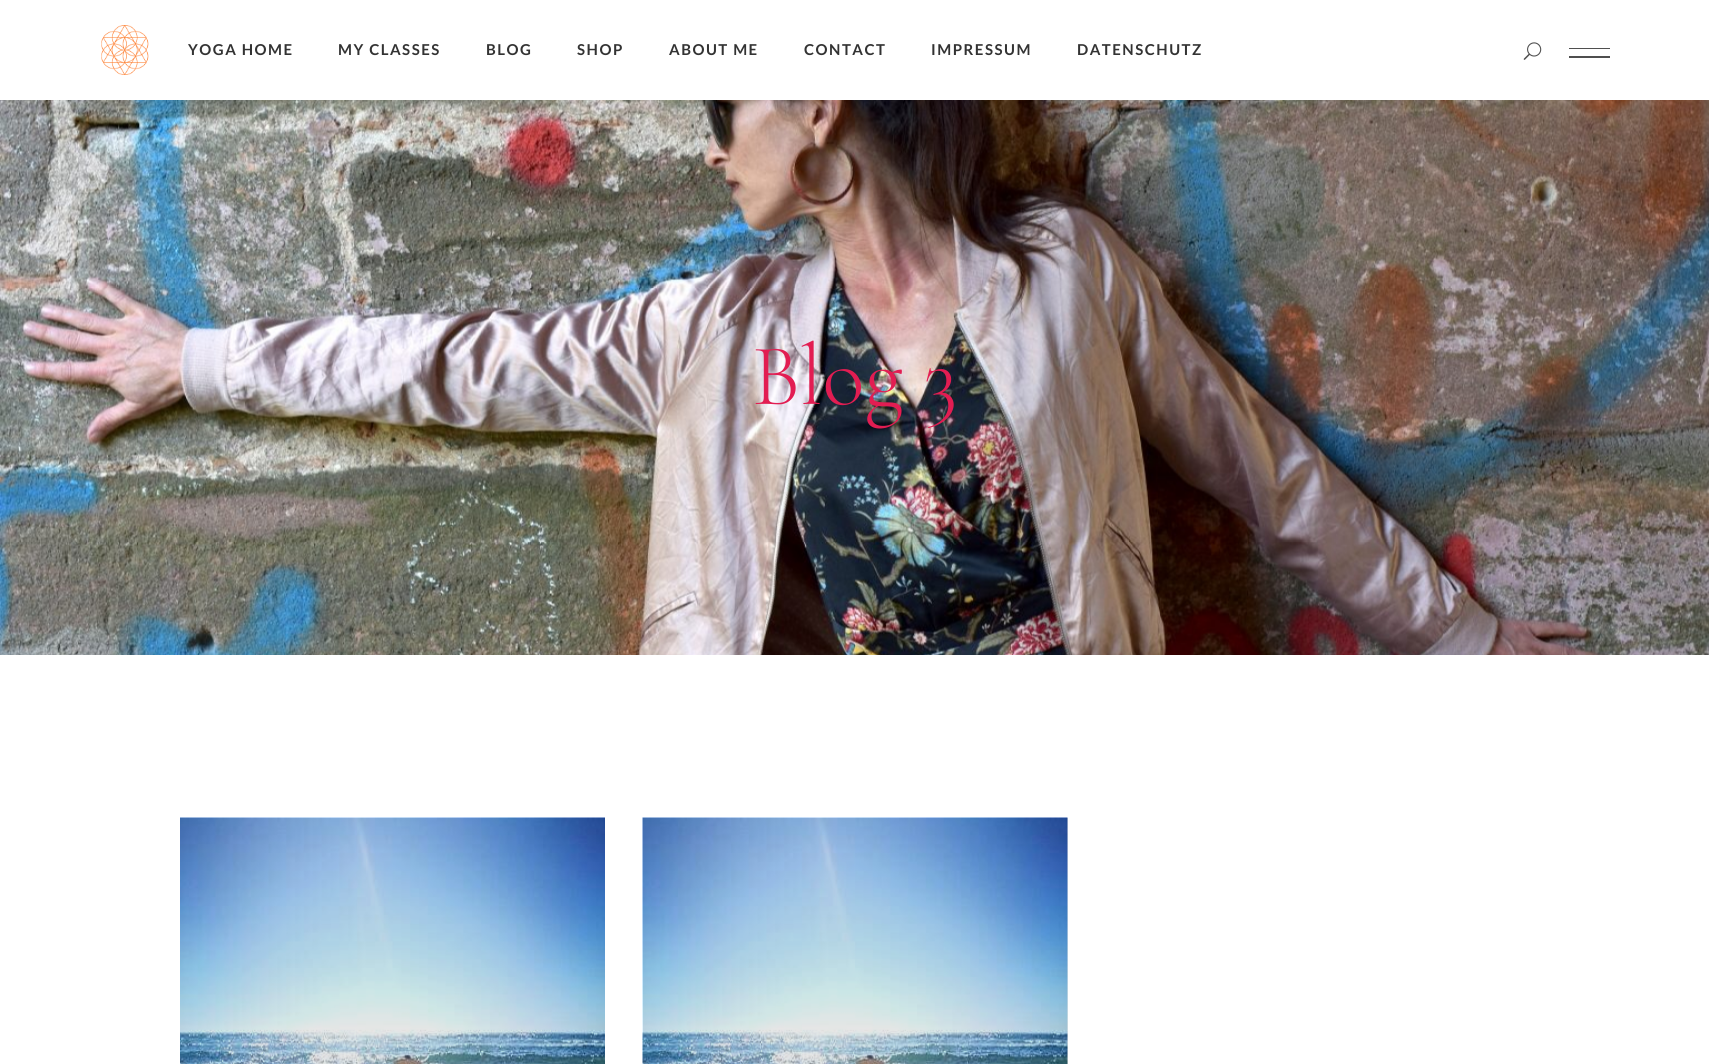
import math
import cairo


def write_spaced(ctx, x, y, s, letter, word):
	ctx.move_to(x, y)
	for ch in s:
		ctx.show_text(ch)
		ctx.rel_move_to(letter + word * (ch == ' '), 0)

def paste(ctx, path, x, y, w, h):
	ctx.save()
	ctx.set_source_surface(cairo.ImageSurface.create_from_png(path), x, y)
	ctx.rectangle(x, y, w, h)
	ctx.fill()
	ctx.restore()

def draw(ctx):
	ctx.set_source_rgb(1, 1, 1)
	ctx.paint()
	ctx.set_source_rgb(0.906, 0.906, 0.906)
	ctx.rectangle(1067, 818, 1, 246)
	ctx.fill()
	paste(ctx, 'media/1.png', 101, 25, 48, 50)
	ctx.select_font_face('Lato', cairo.FONT_SLANT_NORMAL, cairo.FONT_WEIGHT_BOLD)
	ctx.set_font_size(15)
	ctx.set_source_rgb(0.2, 0.2, 0.2)
	for x, y, s in [
		(188, 55, 'YOGA HOME'),
		(338, 55, 'MY CLASSES'),
		(486, 55, 'BLOG'),
		(577, 55, 'SHOP'),
		(669, 55, 'ABOUT ME'),
		(804, 55, 'CONTACT'),
		(931, 55, 'IMPRESSUM'),
		(1077, 55, 'DATENSCHUTZ'),
	]:
		write_spaced(ctx, x, y, s, 1.5, 0)
	paste(ctx, 'media/2.png', 1523, 42, 19, 18)
	ctx.set_source_rgb(0.31, 0.31, 0.31)
	ctx.rectangle(1569, 48, 41, 1)
	ctx.fill()
	ctx.rectangle(1569, 56, 41, 2)
	ctx.fill()
	paste(ctx, 'media/3.png', 0, 100, 1709, 555)
	ctx.select_font_face('Cormorant Garamond Light')
	ctx.set_font_size(87.5)
	ctx.set_source_rgb(0.886, 0.114, 0.322)
	ctx.move_to(752, 404)
	ctx.show_text('Blog 3')
	paste(ctx, 'media/4.png', 180, 817, 425, 247)
	paste(ctx, 'media/5.png', 642, 817, 426, 247)


surface = cairo.ImageSurface(cairo.FORMAT_RGB24, 1709, 1064)
ctx = cairo.Context(surface)
options = cairo.FontOptions()
options.set_hint_metrics(cairo.HINT_METRICS_OFF)
options.set_hint_style(cairo.HINT_STYLE_NONE)
ctx.set_font_options(options)
ctx.set_miter_limit(4)
draw(ctx)
surface.write_to_png('image.png')
